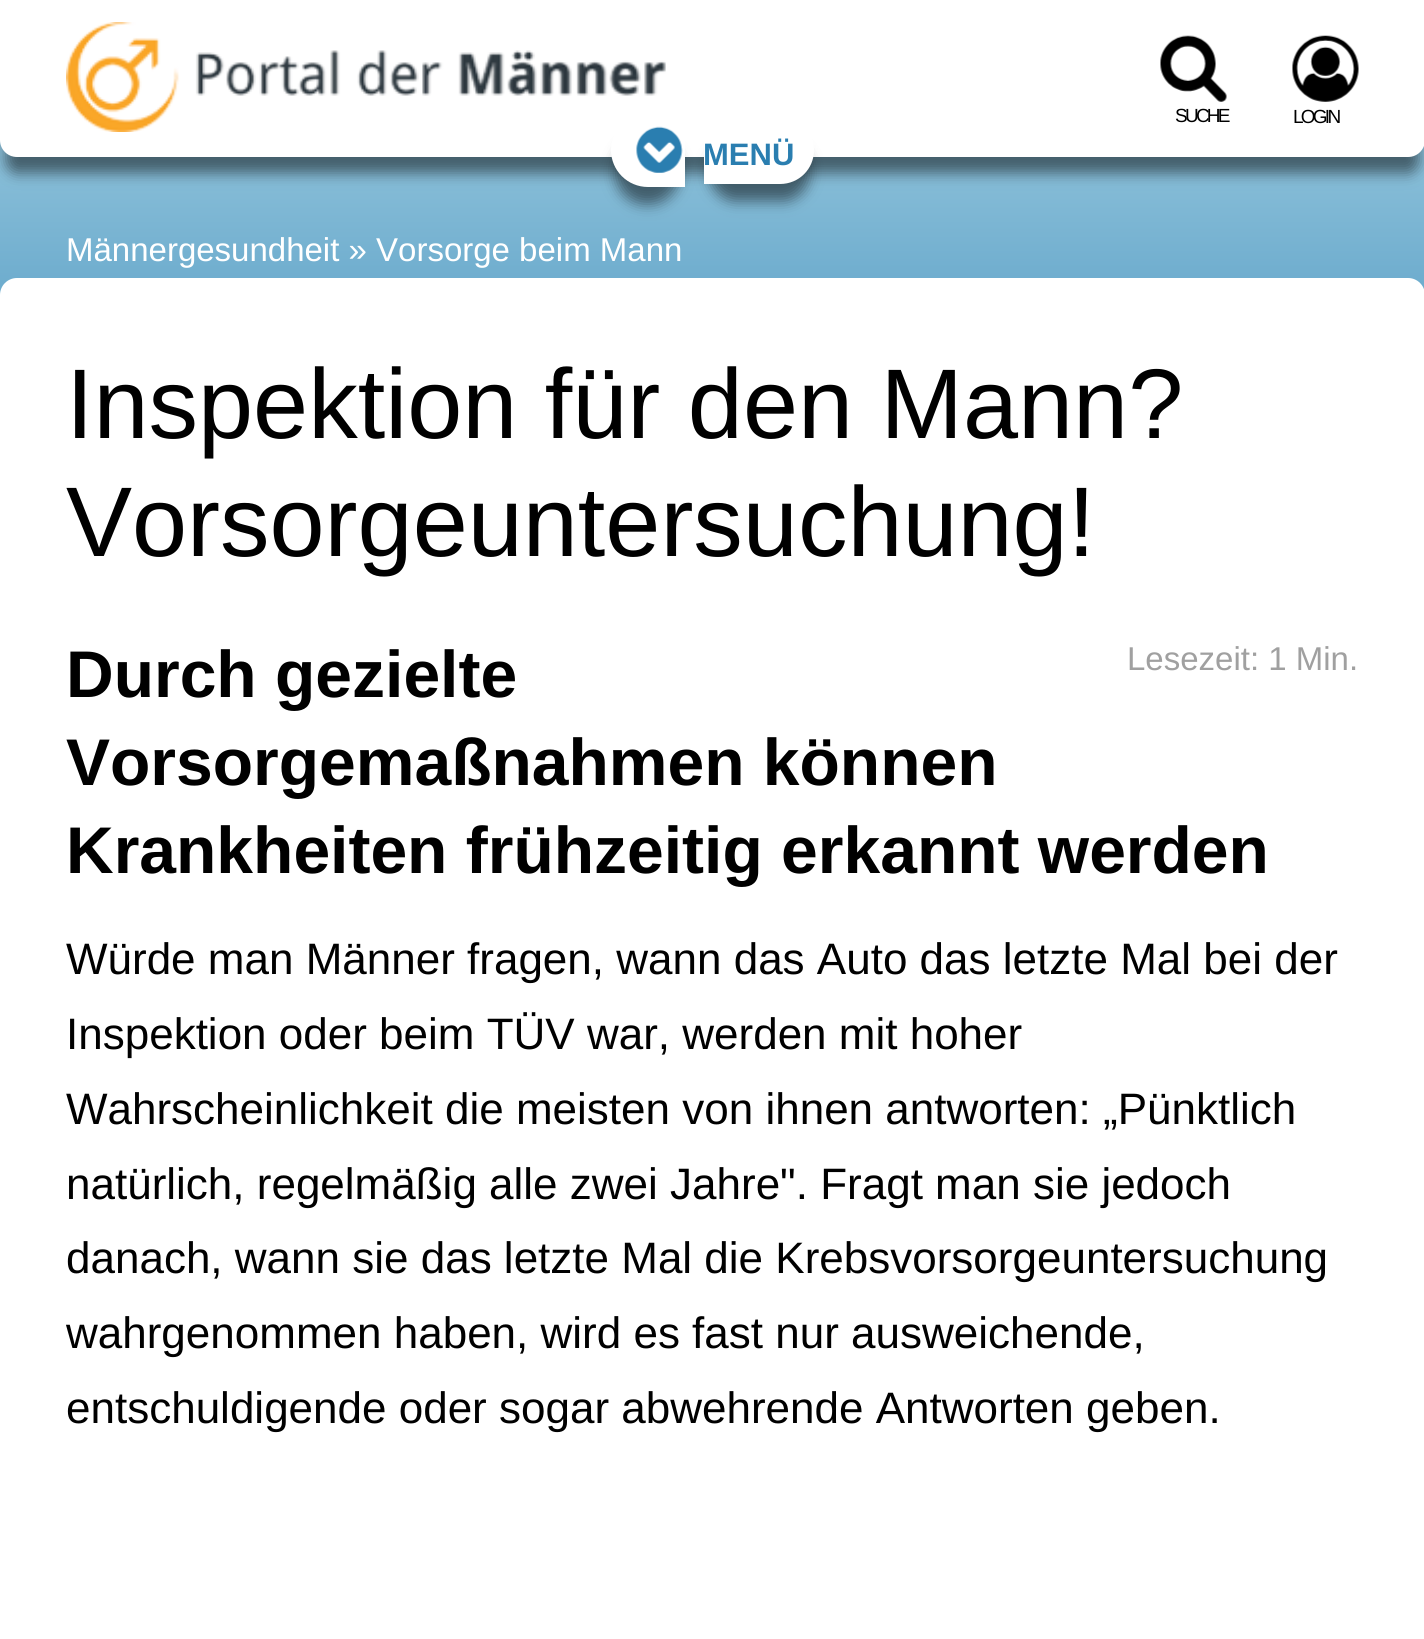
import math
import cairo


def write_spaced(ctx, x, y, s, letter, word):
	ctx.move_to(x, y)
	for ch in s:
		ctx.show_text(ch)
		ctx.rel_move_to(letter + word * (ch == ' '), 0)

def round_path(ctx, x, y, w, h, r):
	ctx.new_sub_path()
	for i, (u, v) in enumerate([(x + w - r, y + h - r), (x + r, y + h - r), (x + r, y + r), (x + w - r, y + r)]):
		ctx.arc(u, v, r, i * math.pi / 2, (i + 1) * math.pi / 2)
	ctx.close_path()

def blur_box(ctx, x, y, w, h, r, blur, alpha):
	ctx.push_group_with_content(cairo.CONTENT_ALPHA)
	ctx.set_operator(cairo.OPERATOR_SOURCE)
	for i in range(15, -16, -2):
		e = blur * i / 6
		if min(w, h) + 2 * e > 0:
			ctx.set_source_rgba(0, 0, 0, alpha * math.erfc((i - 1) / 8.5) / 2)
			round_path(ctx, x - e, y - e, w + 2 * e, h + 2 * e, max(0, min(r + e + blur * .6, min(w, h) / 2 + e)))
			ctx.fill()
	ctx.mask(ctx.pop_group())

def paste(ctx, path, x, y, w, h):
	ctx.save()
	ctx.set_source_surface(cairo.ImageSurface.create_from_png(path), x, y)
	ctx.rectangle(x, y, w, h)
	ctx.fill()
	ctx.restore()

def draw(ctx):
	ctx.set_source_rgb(1, 1, 1)
	ctx.paint()
	gradient = cairo.LinearGradient(712, 0, 712, 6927)
	gradient.add_color_stop_rgba(0, 0.667, 0.831, 0.898, 1)
	gradient.add_color_stop_rgba(0.1, 0.098, 0.459, 0.678, 1)
	gradient.add_color_stop_rgba(0.4, 0.667, 0.831, 0.898, 1)
	gradient.add_color_stop_rgba(1, 0.667, 0.831, 0.898, 1)
	ctx.set_source(gradient)
	ctx.rectangle(0, 140, 1424, 155)
	ctx.fill()
	ctx.set_source_rgb(0, 0, 0)
	blur_box(ctx, 6, 28, 1413, 145, 11, 7, 0.5)
	ctx.set_source_rgb(1, 1, 1)
	ctx.new_path()
	ctx.move_to(0, 0)
	ctx.line_to(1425, 0)
	ctx.line_to(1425, 140)
	ctx.curve_to(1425, 149.5, 1417.5, 157, 1408, 157)
	ctx.line_to(17, 157)
	ctx.curve_to(7.5, 157, 0, 149.5, 0, 140)
	ctx.close_path()
	ctx.fill()
	paste(ctx, 'media/1.png', 66, 22, 600, 110)
	paste(ctx, 'media/2.png', 1160, 35, 67, 67)
	ctx.select_font_face('Liberation Sans')
	ctx.set_font_size(19)
	ctx.set_source_rgb(0, 0, 0)
	write_spaced(ctx, 1175, 122, 'SUCHE', -2.75, 0)
	paste(ctx, 'media/3.png', 1292, 35, 67, 67)
	write_spaced(ctx, 1293, 123, 'LOGIN', -2.75, 0)
	ctx.set_source_rgb(0, 0, 0)
	blur_box(ctx, 616, 140, 63, 64, 31.5, 7, 0.5)
	ctx.set_source_rgb(1, 1, 1)
	ctx.new_path()
	ctx.move_to(648, 113)
	ctx.line_to(685, 113)
	ctx.line_to(685, 187)
	ctx.line_to(648, 187)
	ctx.curve_to(627.5, 187, 611, 170.5, 611, 150)
	ctx.curve_to(611, 129.5, 627.5, 113, 648, 113)
	ctx.close_path()
	ctx.fill()
	ctx.set_source_rgb(0, 0, 0)
	blur_box(ctx, 710, 143, 99, 58, 29, 7, 0.5)
	ctx.set_source_rgb(1, 1, 1)
	ctx.new_path()
	ctx.move_to(704, 116)
	ctx.line_to(780, 116)
	ctx.curve_to(799, 116, 814, 131, 814, 150)
	ctx.curve_to(814, 169, 799, 184, 780, 184)
	ctx.line_to(704, 184)
	ctx.close_path()
	ctx.fill()
	paste(ctx, 'media/4.png', 636, 126, 47, 47)
	ctx.select_font_face('Liberation Sans', cairo.FONT_SLANT_NORMAL, cairo.FONT_WEIGHT_BOLD)
	ctx.set_font_size(31)
	ctx.set_source_rgb(0.165, 0.494, 0.69)
	ctx.move_to(703, 165)
	ctx.show_text('MENÜ')
	ctx.select_font_face('Liberation Sans')
	ctx.set_font_size(33)
	ctx.set_source_rgb(1, 1, 1)
	ctx.move_to(66, 261)
	ctx.show_text('Männergesundheit » Vorsorge beim Mann')
	round_path(ctx, 0, 278, 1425, 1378, 17)
	ctx.fill()
	ctx.set_font_size(99)
	ctx.set_source_rgb(0, 0, 0)
	ctx.move_to(66, 438)
	ctx.show_text('Inspektion für den Mann?')
	ctx.move_to(66, 556)
	ctx.show_text('Vorsorgeuntersuchung!')
	ctx.set_font_size(33)
	ctx.set_source_rgb(0.627, 0.627, 0.627)
	ctx.move_to(1127, 670)
	ctx.show_text('Lesezeit: 1 Min.')
	ctx.select_font_face('Liberation Sans', cairo.FONT_SLANT_NORMAL, cairo.FONT_WEIGHT_BOLD)
	ctx.set_font_size(66)
	ctx.set_source_rgb(0, 0, 0)
	for x, y, s in [
		(66, 697, 'Durch gezielte'),
		(66, 785, 'Vorsorgemaßnahmen können'),
		(66, 873, 'Krankheiten frühzeitig erkannt werden'),
	]:
		ctx.move_to(x, y)
		ctx.show_text(s)
	ctx.select_font_face('Liberation Sans')
	ctx.set_font_size(44)
	for x, y, s in [
		(66, 974, 'Würde man Männer fragen, wann das Auto das letzte Mal bei der'),
		(66, 1049, 'Inspektion oder beim TÜV war, werden mit hoher'),
		(66, 1124, 'Wahrscheinlichkeit die meisten von ihnen antworten: „Pünktlich'),
		(66, 1199, 'natürlich, regelmäßig alle zwei Jahre". Fragt man sie jedoch'),
		(66, 1273, 'danach, wann sie das letzte Mal die Krebsvorsorgeuntersuchung'),
		(66, 1348, 'wahrgenommen haben, wird es fast nur ausweichende,'),
		(66, 1423, 'entschuldigende oder sogar abwehrende Antworten geben.'),
	]:
		ctx.move_to(x, y)
		ctx.show_text(s)


surface = cairo.ImageSurface(cairo.FORMAT_RGB24, 1424, 1639)
ctx = cairo.Context(surface)
options = cairo.FontOptions()
options.set_hint_metrics(cairo.HINT_METRICS_OFF)
options.set_hint_style(cairo.HINT_STYLE_NONE)
ctx.set_font_options(options)
ctx.set_miter_limit(4)
draw(ctx)
surface.write_to_png('image.png')
